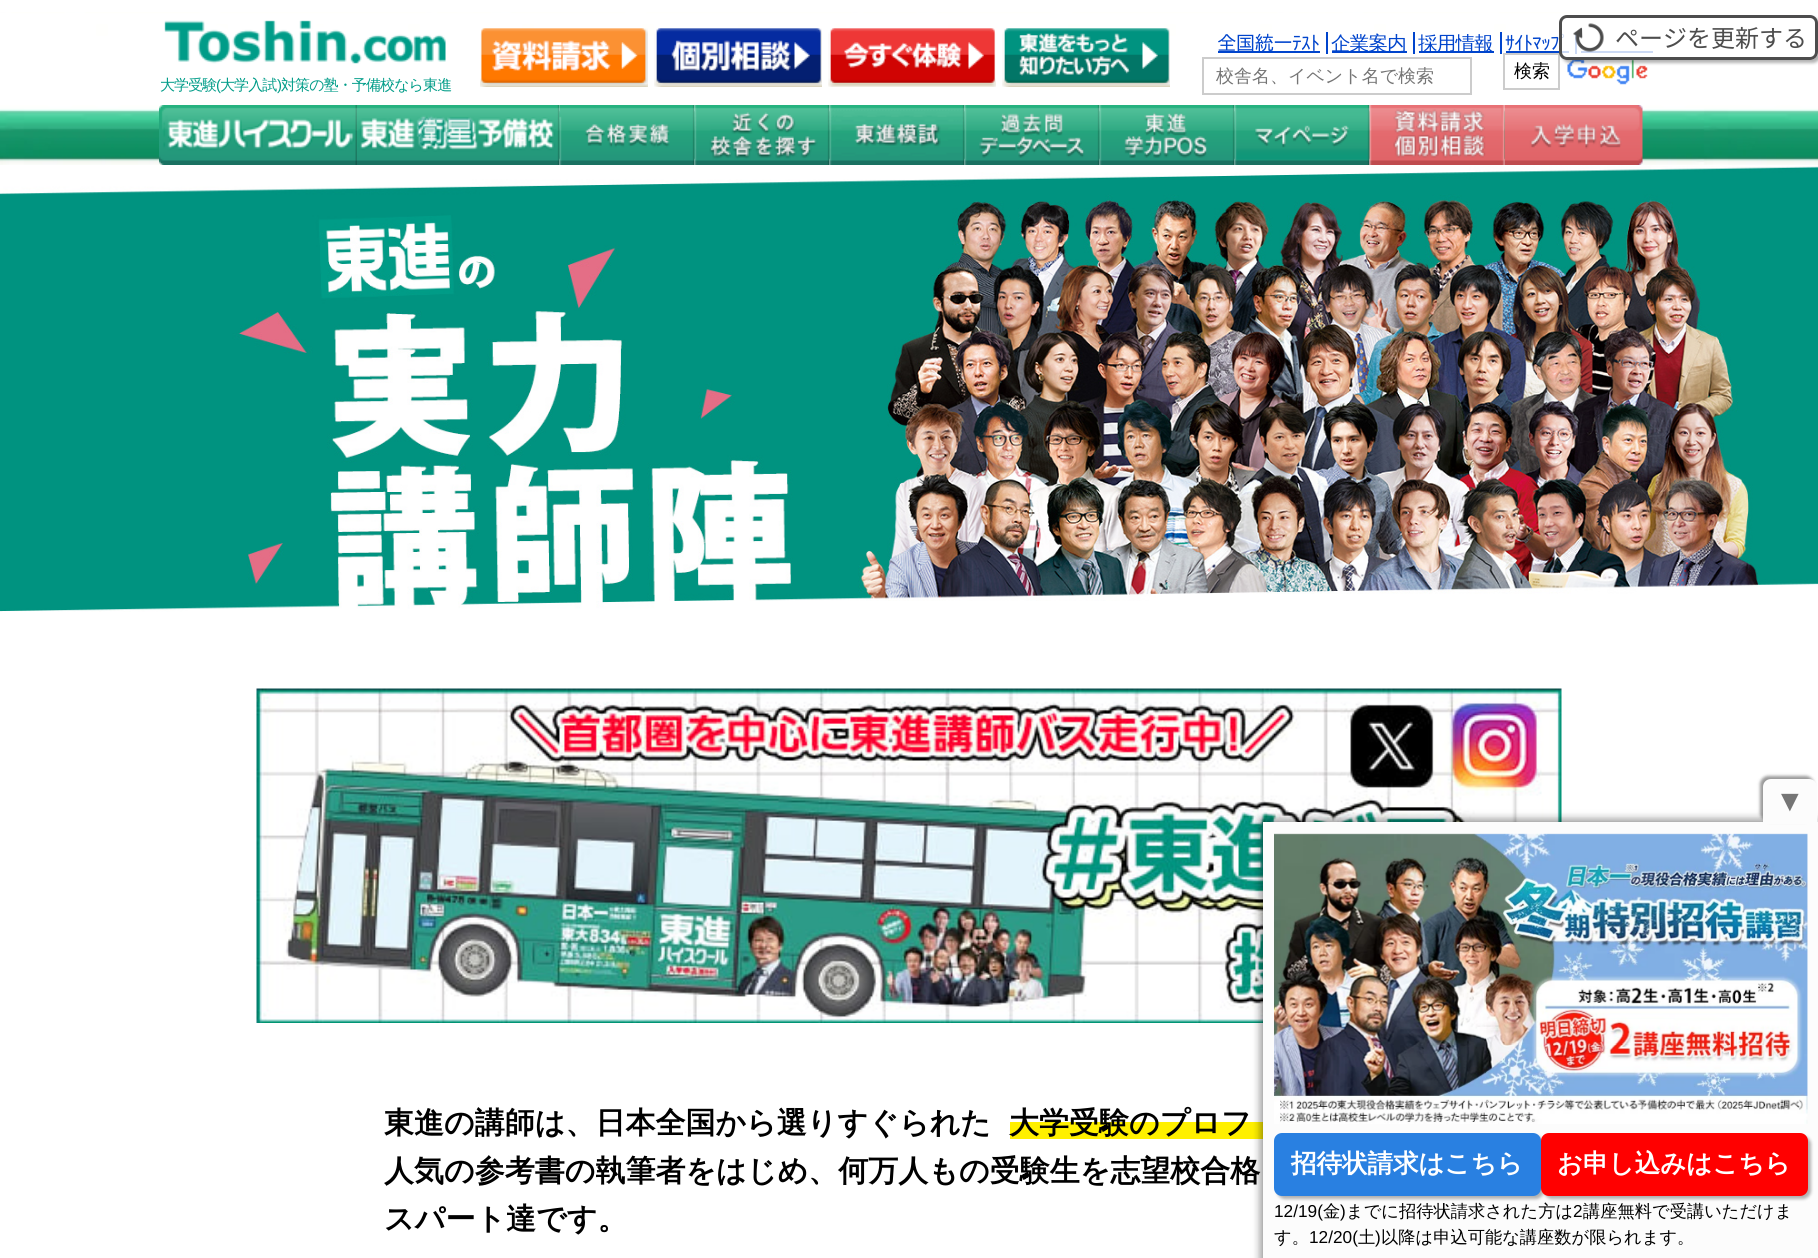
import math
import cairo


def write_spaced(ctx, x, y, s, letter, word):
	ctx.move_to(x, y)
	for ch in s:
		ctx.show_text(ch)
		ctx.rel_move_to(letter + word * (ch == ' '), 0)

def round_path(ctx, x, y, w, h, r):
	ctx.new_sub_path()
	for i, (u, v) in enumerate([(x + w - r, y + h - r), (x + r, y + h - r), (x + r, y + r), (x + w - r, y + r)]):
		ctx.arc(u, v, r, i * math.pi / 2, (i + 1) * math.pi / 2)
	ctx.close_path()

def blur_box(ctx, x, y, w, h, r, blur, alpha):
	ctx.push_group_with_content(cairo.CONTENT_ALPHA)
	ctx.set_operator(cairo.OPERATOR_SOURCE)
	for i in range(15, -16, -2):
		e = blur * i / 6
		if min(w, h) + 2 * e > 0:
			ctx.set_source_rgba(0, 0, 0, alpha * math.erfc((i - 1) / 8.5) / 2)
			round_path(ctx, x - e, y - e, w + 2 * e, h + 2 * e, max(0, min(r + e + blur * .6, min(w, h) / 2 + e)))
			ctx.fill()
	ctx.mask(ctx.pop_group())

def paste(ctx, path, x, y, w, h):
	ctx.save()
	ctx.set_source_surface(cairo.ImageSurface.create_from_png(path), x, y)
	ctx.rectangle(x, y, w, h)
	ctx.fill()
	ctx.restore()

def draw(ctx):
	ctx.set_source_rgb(1, 1, 1)
	ctx.paint()
	paste(ctx, 'media/1.png', 0, 12, 1818, 153)
	paste(ctx, 'media/2.png', 164, 20, 282, 44)
	ctx.select_font_face('WenQuanYi Zen Hei Medium')
	ctx.set_font_size(15)
	ctx.set_source_rgb(0, 0.612, 0.533)
	write_spaced(ctx, 160, 90, '大学受験', -0.9, 0)
	ctx.select_font_face('Liberation Sans')
	write_spaced(ctx, 216, 90, '(', -0.9, 0)
	ctx.select_font_face('WenQuanYi Zen Hei Medium')
	write_spaced(ctx, 220, 90, '大学入試', -0.9, 0)
	ctx.select_font_face('Liberation Sans')
	write_spaced(ctx, 277, 90, ')', -0.9, 0)
	ctx.select_font_face('WenQuanYi Zen Hei Medium')
	write_spaced(ctx, 281, 90, '対策の塾・予備校なら東進', -0.9, 0)
	paste(ctx, 'media/3.png', 480, 28, 168, 59)
	paste(ctx, 'media/4.png', 654, 28, 168, 59)
	paste(ctx, 'media/5.png', 828, 28, 168, 59)
	paste(ctx, 'media/6.png', 1002, 28, 168, 59)
	ctx.set_source_rgb(0, 0.267, 0.8)
	ctx.rectangle(1218, 51, 102, 2)
	ctx.fill()
	ctx.select_font_face('IPAPGothic')
	ctx.set_font_size(19.5)
	write_spaced(ctx, 1217, 50, '全国統一ﾃｽﾄ', -0.75, 0)
	ctx.rectangle(1326, 32, 2, 22)
	ctx.fill()
	ctx.rectangle(1332, 51, 75, 2)
	ctx.fill()
	ctx.select_font_face('WenQuanYi Zen Hei Medium')
	write_spaced(ctx, 1331, 50, '企業案内', -0.75, 0)
	ctx.rectangle(1413, 32, 2, 22)
	ctx.fill()
	ctx.rectangle(1419, 51, 75, 2)
	ctx.fill()
	write_spaced(ctx, 1418, 50, '採用情報', -0.75, 0)
	ctx.rectangle(1500, 32, 2, 22)
	ctx.fill()
	ctx.select_font_face('IPAPGothic')
	write_spaced(ctx, 1505, 50, 'ｻｲﾄﾏｯﾌﾟ', -0.75, 0)
	ctx.rectangle(1575, 32, 2, 22)
	ctx.rectangle(1506, 51, 63, 2)
	ctx.rectangle(1581, 51, 72, 2)
	ctx.fill()
	ctx.rectangle(1203, 58, 268, 36)
	ctx.set_source_rgb(0.8, 0.8, 0.8)
	ctx.stroke()
	ctx.select_font_face('WenQuanYi Zen Hei Medium')
	ctx.set_font_size(18)
	ctx.set_source_rgb(0.459, 0.459, 0.459)
	ctx.move_to(1216, 82)
	ctx.show_text('校舎名、イベント名で検索')
	ctx.rectangle(1504, 54, 55, 35)
	ctx.set_source_rgb(0.8, 0.8, 0.8)
	ctx.stroke()
	ctx.set_source_rgb(0, 0, 0)
	ctx.move_to(1514, 77)
	ctx.show_text('検索')
	paste(ctx, 'media/7.png', 1567, 60, 81, 25)
	paste(ctx, 'media/8.png', 159, 105, 198, 60)
	paste(ctx, 'media/9.png', 357, 105, 203, 60)
	paste(ctx, 'media/10.png', 559, 105, 136, 60)
	paste(ctx, 'media/11.png', 694, 105, 136, 60)
	paste(ctx, 'media/12.png', 829, 105, 136, 60)
	paste(ctx, 'media/13.png', 964, 105, 136, 60)
	paste(ctx, 'media/14.png', 1099, 105, 136, 60)
	paste(ctx, 'media/15.png', 1234, 105, 136, 60)
	paste(ctx, 'media/16.png', 1369, 105, 136, 60)
	paste(ctx, 'media/17.png', 1504, 105, 139, 60)
	ctx.save()
	ctx.set_fill_rule(cairo.FILL_RULE_EVEN_ODD)
	ctx.new_path()
	ctx.move_to(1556, 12)
	ctx.line_to(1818, 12)
	ctx.line_to(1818, 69)
	ctx.line_to(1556, 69)
	ctx.close_path()
	ctx.move_to(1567, 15)
	ctx.line_to(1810, 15)
	ctx.curve_to(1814.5, 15, 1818, 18.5, 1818, 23)
	ctx.line_to(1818, 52)
	ctx.curve_to(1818, 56.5, 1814.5, 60, 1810, 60)
	ctx.line_to(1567, 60)
	ctx.curve_to(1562.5, 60, 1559, 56.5, 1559, 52)
	ctx.line_to(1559, 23)
	ctx.curve_to(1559, 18.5, 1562.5, 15, 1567, 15)
	ctx.close_path()
	ctx.clip()
	ctx.set_source_rgb(0, 0, 0)
	blur_box(ctx, 1562, 18, 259, 45, 8, 1.5, 0.3)
	ctx.restore()
	ctx.set_source_rgba(1, 1, 1, 0.8)
	round_path(ctx, 1560.5, 16.5, 256, 42, 6.5)
	ctx.fill_preserve()
	ctx.set_source_rgb(0.302, 0.302, 0.302)
	ctx.set_line_width(3)
	ctx.stroke()
	paste(ctx, 'media/18.png', 1573, 23, 31, 29)
	ctx.select_font_face('Noto Sans JP')
	ctx.set_font_size(24)
	ctx.move_to(1615, 47)
	ctx.show_text('ページを更新する')
	paste(ctx, 'media/19.png', 0, 165, 1818, 447)
	paste(ctx, 'media/20.png', 256, 688, 1306, 335)
	ctx.select_font_face('WenQuanYi Zen Hei', cairo.FONT_SLANT_NORMAL, cairo.FONT_WEIGHT_BOLD)
	ctx.set_font_size(30)
	ctx.set_source_rgb(0, 0, 0)
	ctx.move_to(384, 1133)
	ctx.show_text('東進の講師は、日本全国から選りすぐられた')
	ctx.set_source_rgb(1, 0.941, 0)
	ctx.rectangle(1010, 1122, 253, 17)
	ctx.fill()
	ctx.set_source_rgb(0, 0, 0)
	for x, y, s in [
		(1009, 1133, '大学受験のプロフ'),
		(384, 1181, '人気の参考書の執筆者をはじめ、何万人もの受験生を志望校合格'),
		(384, 1229, 'スパート達です。'),
	]:
		ctx.move_to(x, y)
		ctx.show_text(s)
	ctx.set_source_rgb(0, 0, 0)
	blur_box(ctx, 1260, 819, 555, 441, 0, 4, 0.4)
	ctx.set_source_rgb(0.988, 0.988, 0.988)
	ctx.rectangle(1263, 822, 555, 436)
	ctx.fill()
	ctx.set_source_rgb(0, 0, 0)
	blur_box(ctx, 1760, 776, 54, 45, 8, 1.5, 0.4)
	ctx.set_source_rgb(0.988, 0.988, 0.988)
	ctx.new_path()
	ctx.move_to(1771, 779)
	ctx.line_to(1809, 779)
	ctx.curve_to(1813.5, 779, 1817, 782.5, 1817, 787)
	ctx.line_to(1817, 824)
	ctx.line_to(1763, 824)
	ctx.line_to(1763, 787)
	ctx.curve_to(1763, 782.5, 1766.5, 779, 1771, 779)
	ctx.close_path()
	ctx.fill()
	ctx.select_font_face('Liberation Sans', cairo.FONT_SLANT_NORMAL, cairo.FONT_WEIGHT_BOLD)
	ctx.set_source_rgb(0.459, 0.459, 0.459)
	ctx.move_to(1775, 811)
	ctx.show_text('▼')
	paste(ctx, 'media/21.png', 1274, 833, 534, 291)
	ctx.set_source_rgb(0, 0, 0)
	blur_box(ctx, 1277, 1136, 267, 63, 8, 1.5, 0.3)
	ctx.set_source_rgb(0.161, 0.502, 0.882)
	round_path(ctx, 1274, 1133, 267, 63, 8)
	ctx.fill()
	ctx.select_font_face('WenQuanYi Zen Hei', cairo.FONT_SLANT_NORMAL, cairo.FONT_WEIGHT_BOLD)
	ctx.set_font_size(25.5)
	ctx.set_source_rgb(1, 1, 1)
	ctx.move_to(1291, 1172)
	ctx.show_text('招待状請求はこちら')
	ctx.set_source_rgb(0, 0, 0)
	blur_box(ctx, 1544, 1136, 267, 63, 8, 1.5, 0.3)
	ctx.set_source_rgb(1, 0, 0)
	round_path(ctx, 1541, 1133, 267, 63, 8)
	ctx.fill()
	ctx.set_source_rgb(1, 1, 1)
	ctx.move_to(1557, 1172)
	ctx.show_text('お申し込みはこちら')
	ctx.select_font_face('Liberation Sans')
	ctx.set_font_size(17.25)
	ctx.set_source_rgb(0, 0, 0)
	ctx.move_to(1274, 1217)
	ctx.show_text('12/19(')
	ctx.select_font_face('WenQuanYi Zen Hei Medium')
	ctx.move_to(1323, 1217)
	ctx.show_text('金')
	ctx.select_font_face('Liberation Sans')
	ctx.move_to(1340, 1217)
	ctx.show_text(')')
	ctx.select_font_face('WenQuanYi Zen Hei Medium')
	ctx.move_to(1346, 1217)
	ctx.show_text('までに招待状請求された方は')
	ctx.select_font_face('Liberation Sans')
	ctx.move_to(1573, 1217)
	ctx.show_text('2')
	ctx.select_font_face('WenQuanYi Zen Hei Medium')
	ctx.move_to(1583, 1217)
	ctx.show_text('講座無料で受講いただけま')
	ctx.move_to(1274, 1243)
	ctx.show_text('す。')
	ctx.select_font_face('Liberation Sans')
	ctx.move_to(1309, 1243)
	ctx.show_text('12/20(')
	ctx.select_font_face('WenQuanYi Zen Hei Medium')
	ctx.move_to(1358, 1243)
	ctx.show_text('土')
	ctx.select_font_face('Liberation Sans')
	ctx.move_to(1375, 1243)
	ctx.show_text(')')
	ctx.select_font_face('WenQuanYi Zen Hei Medium')
	ctx.move_to(1381, 1243)
	ctx.show_text('以降は申込可能な講座数が限られます。')


surface = cairo.ImageSurface(cairo.FORMAT_RGB24, 1818, 1258)
ctx = cairo.Context(surface)
options = cairo.FontOptions()
options.set_hint_metrics(cairo.HINT_METRICS_OFF)
options.set_hint_style(cairo.HINT_STYLE_NONE)
ctx.set_font_options(options)
ctx.set_miter_limit(4)
draw(ctx)
surface.write_to_png('image.png')
